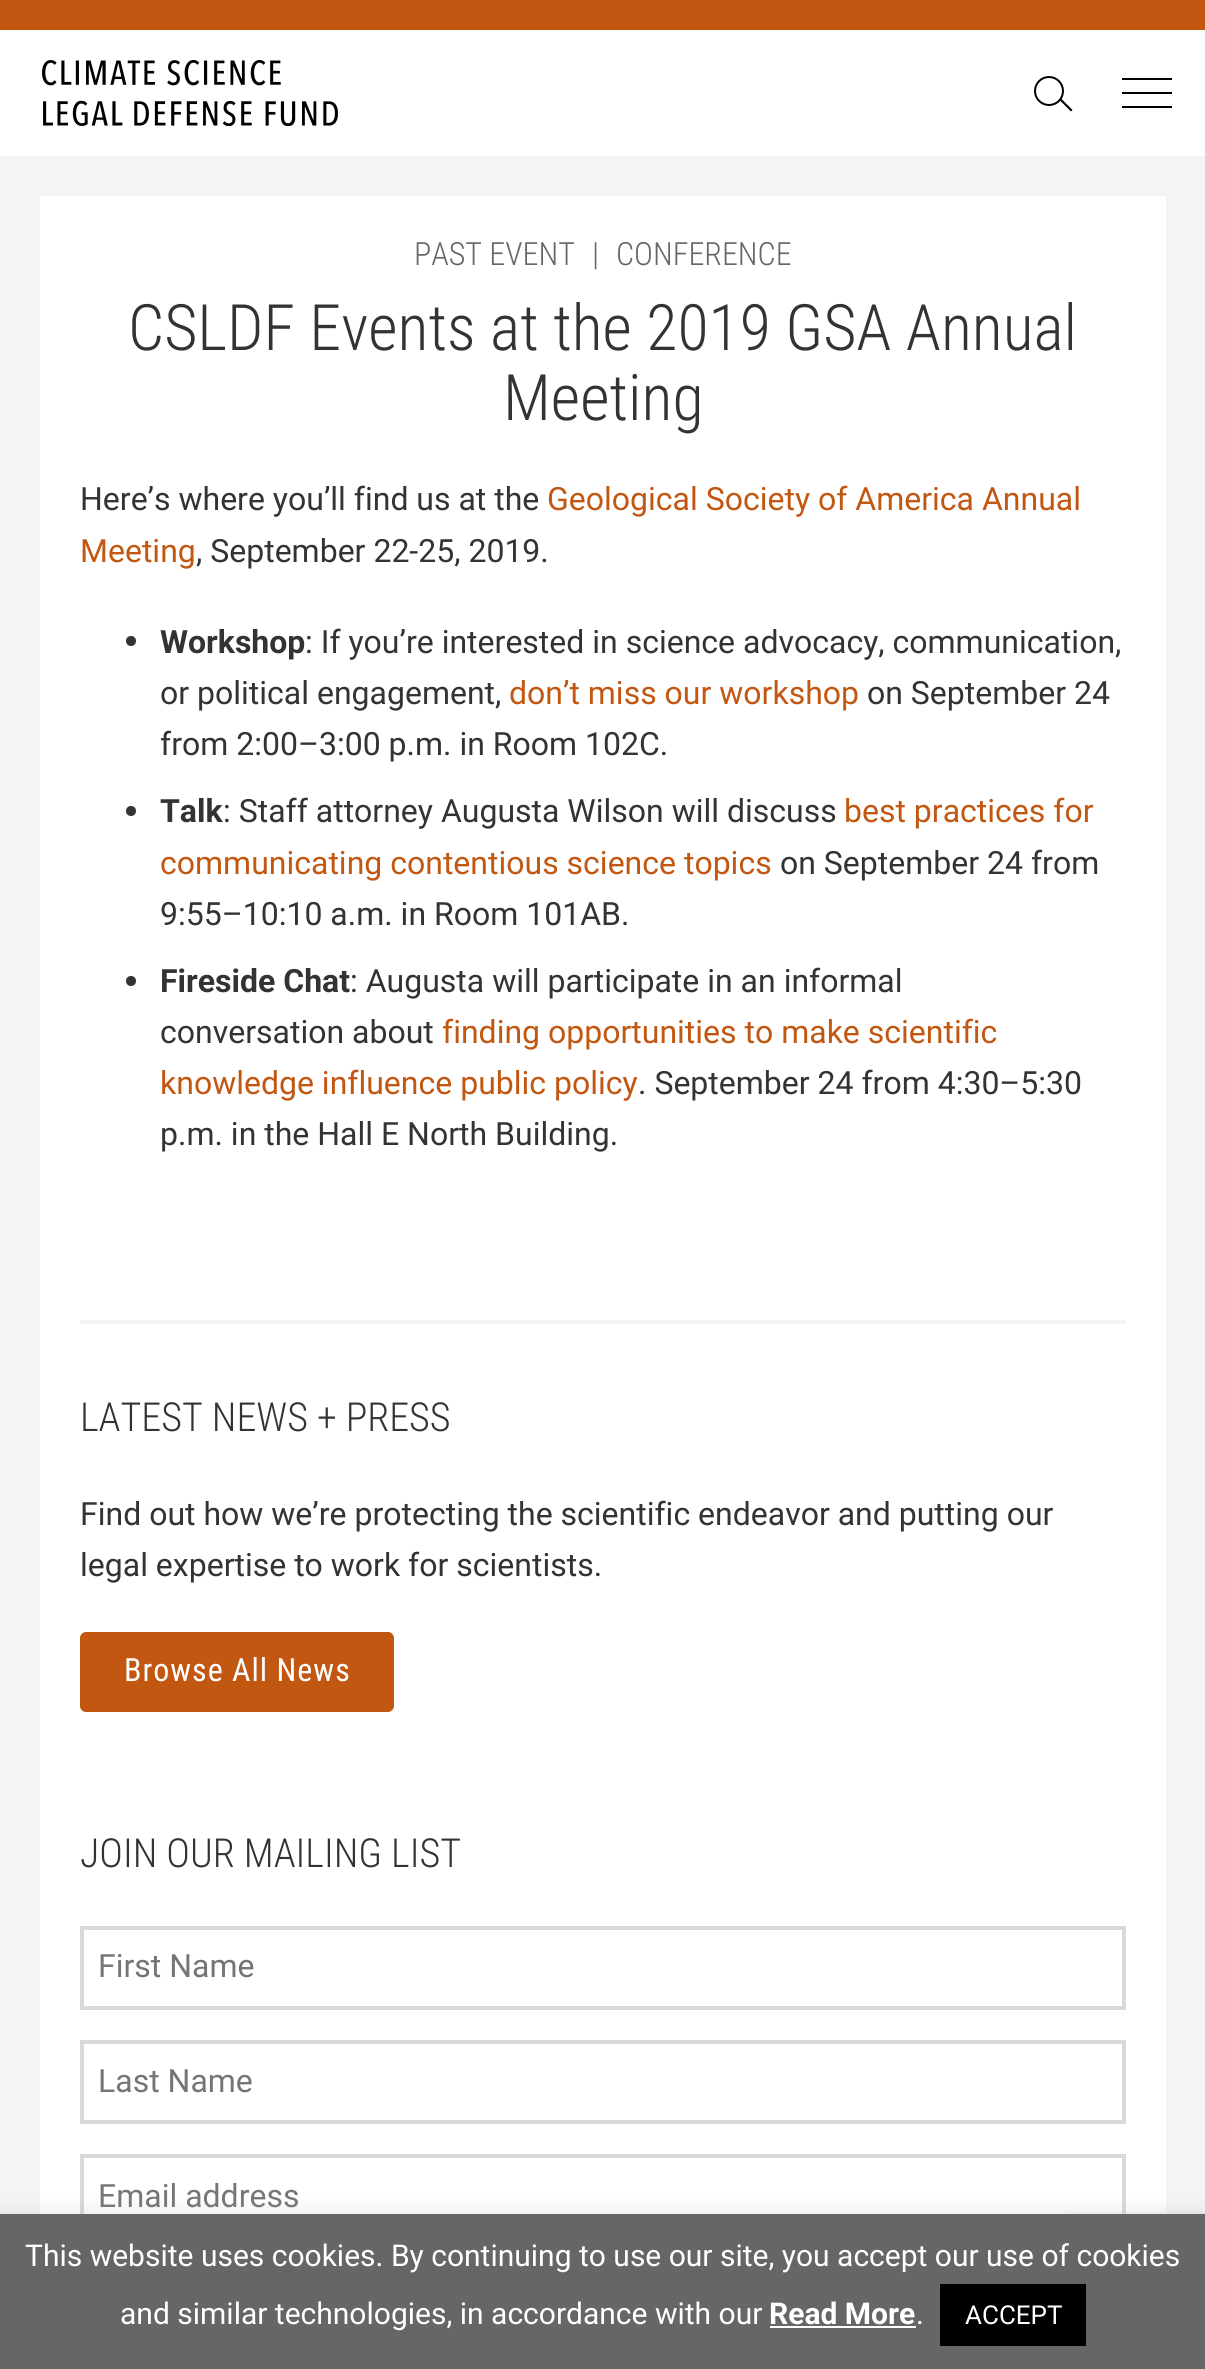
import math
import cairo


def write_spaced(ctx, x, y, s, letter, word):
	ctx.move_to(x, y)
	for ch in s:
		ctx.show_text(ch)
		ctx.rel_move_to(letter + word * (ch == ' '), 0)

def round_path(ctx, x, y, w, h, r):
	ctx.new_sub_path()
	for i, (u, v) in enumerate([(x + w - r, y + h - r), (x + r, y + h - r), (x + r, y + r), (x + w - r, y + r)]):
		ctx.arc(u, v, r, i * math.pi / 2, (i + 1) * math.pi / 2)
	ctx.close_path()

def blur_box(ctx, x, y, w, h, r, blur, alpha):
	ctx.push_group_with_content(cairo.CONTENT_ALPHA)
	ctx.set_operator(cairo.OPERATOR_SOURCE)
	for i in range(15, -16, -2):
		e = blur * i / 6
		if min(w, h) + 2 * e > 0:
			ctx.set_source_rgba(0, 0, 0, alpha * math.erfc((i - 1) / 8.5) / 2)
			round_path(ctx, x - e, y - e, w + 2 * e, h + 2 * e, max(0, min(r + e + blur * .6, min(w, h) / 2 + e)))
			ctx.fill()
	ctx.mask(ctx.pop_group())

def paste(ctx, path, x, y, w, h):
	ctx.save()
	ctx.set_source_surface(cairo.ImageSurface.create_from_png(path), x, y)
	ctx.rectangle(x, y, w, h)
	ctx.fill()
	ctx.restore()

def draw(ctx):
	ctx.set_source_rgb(0.961, 0.957, 0.953)
	ctx.paint()
	ctx.set_source_rgb(1, 1, 1)
	ctx.rectangle(0, 30, 1205, 126)
	ctx.fill()
	ctx.set_source_rgb(0.761, 0.341, 0.067)
	ctx.rectangle(0, 0, 1205, 30)
	ctx.fill()
	paste(ctx, 'media/1.png', 42, 60, 296, 66)
	ctx.arc(1049, 91, 14, 0, 2 * math.pi)
	ctx.set_source_rgb(0, 0, 0)
	ctx.stroke()
	ctx.new_path()
	ctx.move_to(1061, 98.5)
	ctx.line_to(1072.5, 110)
	ctx.line_to(1071, 111.5)
	ctx.line_to(1059.5, 100)
	ctx.close_path()
	ctx.fill()
	ctx.rectangle(1122, 92, 50, 2)
	ctx.rectangle(1122, 78, 50, 2)
	ctx.rectangle(1122, 106, 50, 2)
	ctx.fill()
	ctx.set_source_rgb(1, 1, 1)
	ctx.rectangle(40, 196, 1126, 2018)
	ctx.fill()
	ctx.select_font_face('Roboto Condensed Light')
	ctx.set_font_size(32)
	ctx.set_source_rgb(0.4, 0.4, 0.4)
	for x, y, s in [
		(414, 265, 'PAST EVENT'),
		(592, 265, '|'),
		(616, 265, 'CONFERENCE'),
	]:
		ctx.move_to(x, y)
		ctx.show_text(s)
	ctx.set_font_size(64)
	ctx.set_source_rgb(0.2, 0.2, 0.2)
	ctx.move_to(128, 350)
	ctx.show_text('CSLDF Events at the 2019 GSA Annual')
	ctx.move_to(503, 420)
	ctx.show_text('Meeting')
	ctx.select_font_face('Roboto')
	ctx.set_font_size(32)
	ctx.move_to(80, 510)
	ctx.show_text('Here’s where you’ll find us at the')
	ctx.set_source_rgb(0.761, 0.341, 0.067)
	ctx.move_to(547, 510)
	ctx.show_text('Geological Society of America Annual')
	ctx.move_to(80, 562)
	ctx.show_text('Meeting')
	ctx.set_source_rgb(0.2, 0.2, 0.2)
	ctx.move_to(196, 562)
	ctx.show_text(', September 22-25, 2019.')
	ctx.new_path()
	ctx.arc(131, 641, 5, 0, 2 * math.pi)
	ctx.fill()
	ctx.select_font_face('Roboto', cairo.FONT_SLANT_NORMAL, cairo.FONT_WEIGHT_BOLD)
	ctx.move_to(160, 653)
	ctx.show_text('Workshop')
	ctx.select_font_face('Roboto')
	ctx.move_to(305, 653)
	ctx.show_text(': If you’re interested in science advocacy, communication,')
	ctx.move_to(160, 704)
	ctx.show_text('or political engagement,')
	ctx.set_source_rgb(0.761, 0.341, 0.067)
	ctx.move_to(509, 704)
	ctx.show_text('don’t miss our workshop')
	ctx.set_source_rgb(0.2, 0.2, 0.2)
	ctx.move_to(867, 704)
	ctx.show_text('on September 24')
	ctx.move_to(160, 755)
	ctx.show_text('from 2:00–3:00 p.m. in Room 102C.')
	ctx.new_path()
	ctx.arc(131, 811, 5, 0, 2 * math.pi)
	ctx.fill()
	ctx.select_font_face('Roboto', cairo.FONT_SLANT_NORMAL, cairo.FONT_WEIGHT_BOLD)
	ctx.move_to(160, 822)
	ctx.show_text('Talk')
	ctx.select_font_face('Roboto')
	ctx.move_to(223, 822)
	ctx.show_text(': Staff attorney Augusta Wilson will discuss')
	ctx.set_source_rgb(0.761, 0.341, 0.067)
	ctx.move_to(844, 822)
	ctx.show_text('best practices for')
	ctx.move_to(160, 874)
	ctx.show_text('communicating contentious science topics')
	ctx.set_source_rgb(0.2, 0.2, 0.2)
	ctx.move_to(780, 874)
	ctx.show_text('on September 24 from')
	ctx.move_to(160, 925)
	ctx.show_text('9:55–10:10 a.m. in Room 101AB.')
	ctx.new_path()
	ctx.arc(131, 981, 5, 0, 2 * math.pi)
	ctx.fill()
	ctx.select_font_face('Roboto', cairo.FONT_SLANT_NORMAL, cairo.FONT_WEIGHT_BOLD)
	ctx.move_to(160, 992)
	ctx.show_text('Fireside Chat')
	ctx.select_font_face('Roboto')
	ctx.move_to(350, 992)
	ctx.show_text(': Augusta will participate in an informal')
	ctx.move_to(160, 1043)
	ctx.show_text('conversation about')
	ctx.set_source_rgb(0.761, 0.341, 0.067)
	ctx.move_to(442, 1043)
	ctx.show_text('finding opportunities to make scientific')
	ctx.move_to(160, 1094)
	ctx.show_text('knowledge influence public policy')
	ctx.set_source_rgb(0.2, 0.2, 0.2)
	ctx.move_to(638, 1094)
	ctx.show_text('. September 24 from 4:30–5:30')
	ctx.move_to(160, 1145)
	ctx.show_text('p.m. in the Hall E North Building.')
	ctx.set_source_rgb(0.961, 0.957, 0.953)
	ctx.rectangle(80, 1320, 1046, 4)
	ctx.fill()
	ctx.select_font_face('Roboto Condensed Light')
	ctx.set_font_size(40)
	ctx.set_source_rgb(0.2, 0.2, 0.2)
	ctx.move_to(80, 1431)
	ctx.show_text('LATEST NEWS + PRESS')
	ctx.select_font_face('Roboto')
	ctx.set_font_size(32)
	ctx.move_to(80, 1525)
	ctx.show_text('Find out how we’re protecting the scientific endeavor and putting our')
	ctx.move_to(80, 1576)
	ctx.show_text('legal expertise to work for scientists.')
	ctx.set_source_rgb(0.761, 0.341, 0.067)
	round_path(ctx, 82, 1634, 310, 76, 4)
	ctx.fill_preserve()
	ctx.set_line_width(4)
	ctx.stroke()
	ctx.select_font_face('Roboto Condensed')
	ctx.set_source_rgb(1, 1, 1)
	write_spaced(ctx, 124, 1681, 'Browse All News', 1, 0)
	ctx.select_font_face('Roboto Condensed Light')
	ctx.set_font_size(40)
	ctx.set_source_rgb(0.2, 0.2, 0.2)
	ctx.move_to(80, 1867)
	ctx.show_text('JOIN OUR MAILING LIST')
	ctx.rectangle(82, 1928, 1042, 80)
	ctx.set_source_rgb(0.851, 0.851, 0.851)
	ctx.stroke()
	ctx.select_font_face('Roboto')
	ctx.set_font_size(32)
	ctx.set_source_rgb(0.459, 0.459, 0.459)
	ctx.move_to(98, 1977)
	ctx.show_text('First Name')
	ctx.rectangle(82, 2042, 1042, 80)
	ctx.set_source_rgb(0.851, 0.851, 0.851)
	ctx.stroke()
	ctx.set_source_rgb(0.459, 0.459, 0.459)
	ctx.move_to(98, 2092)
	ctx.show_text('Last Name')
	ctx.rectangle(82, 2156, 1042, 82)
	ctx.set_source_rgb(0.851, 0.851, 0.851)
	ctx.stroke()
	ctx.set_source_rgb(0.459, 0.459, 0.459)
	ctx.move_to(98, 2207)
	ctx.show_text('Email address')
	ctx.set_source_rgb(0.502, 0.502, 0.502)
	blur_box(ctx, 1066, 2222, 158, 120, 4, 5, 1)
	ctx.set_source_rgb(0.675, 0.671, 0.671)
	blur_box(ctx, 0, 2212, 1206, 156, 0, 10, 0.3)
	ctx.set_source_rgb(0.4, 0.4, 0.4)
	ctx.rectangle(0, 2214, 1205, 155)
	ctx.fill()
	ctx.set_font_size(30)
	ctx.set_source_rgb(1, 1, 1)
	ctx.move_to(25, 2266)
	ctx.show_text('This website uses cookies. By continuing to use our site, you accept our use of cookies')
	ctx.move_to(120, 2324)
	ctx.show_text('and similar technologies, in accordance with our')
	ctx.select_font_face('Roboto', cairo.FONT_SLANT_NORMAL, cairo.FONT_WEIGHT_BOLD)
	ctx.move_to(769, 2324)
	ctx.show_text('Read More')
	ctx.rectangle(770, 2326, 146, 2)
	ctx.fill()
	ctx.select_font_face('Roboto')
	ctx.move_to(916, 2324)
	ctx.show_text('.')
	ctx.set_source_rgb(0, 0, 0)
	ctx.rectangle(940, 2284, 146, 62)
	ctx.fill()
	ctx.set_font_size(26)
	ctx.set_source_rgb(1, 1, 1)
	ctx.move_to(965, 2324)
	ctx.show_text('ACCEPT')


surface = cairo.ImageSurface(cairo.FORMAT_RGB24, 1205, 2369)
ctx = cairo.Context(surface)
options = cairo.FontOptions()
options.set_hint_metrics(cairo.HINT_METRICS_OFF)
options.set_hint_style(cairo.HINT_STYLE_NONE)
ctx.set_font_options(options)
ctx.set_miter_limit(4)
draw(ctx)
surface.write_to_png('image.png')
